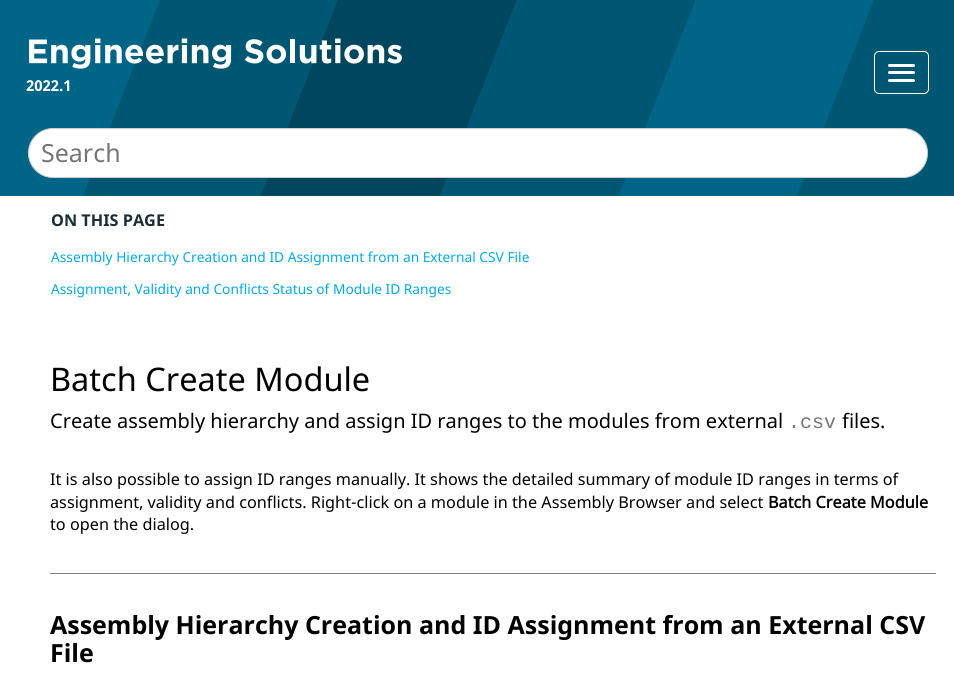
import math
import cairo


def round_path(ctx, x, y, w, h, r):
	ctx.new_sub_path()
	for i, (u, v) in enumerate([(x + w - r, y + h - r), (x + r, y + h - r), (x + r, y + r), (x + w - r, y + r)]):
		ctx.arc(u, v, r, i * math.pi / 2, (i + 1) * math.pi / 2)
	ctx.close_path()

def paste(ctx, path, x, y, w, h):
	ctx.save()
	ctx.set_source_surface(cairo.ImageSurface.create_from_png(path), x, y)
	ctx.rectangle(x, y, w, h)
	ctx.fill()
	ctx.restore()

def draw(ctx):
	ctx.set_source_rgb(1, 1, 1)
	ctx.paint()
	paste(ctx, 'media/1.png', 0, 0, 954, 196)
	paste(ctx, 'media/2.png', 29, 38, 373, 31)
	ctx.select_font_face('Noto Sans', cairo.FONT_SLANT_NORMAL, cairo.FONT_WEIGHT_BOLD)
	ctx.set_font_size(15)
	ctx.set_source_rgb(1, 1, 1)
	ctx.move_to(26, 91)
	ctx.show_text('2022.1')
	round_path(ctx, 874.5, 51.5, 54, 42, 4.5)
	ctx.set_line_width(1)
	ctx.stroke()
	round_path(ctx, 888, 64, 27, 3, 1.5)
	ctx.fill()
	round_path(ctx, 888, 71, 27, 3, 1.5)
	ctx.fill()
	round_path(ctx, 888, 79, 27, 3, 1.5)
	ctx.fill()
	round_path(ctx, 28.5, 128.5, 899, 49, 24.5)
	ctx.fill_preserve()
	ctx.set_source_rgb(0.8, 0.8, 0.8)
	ctx.stroke()
	ctx.select_font_face('Noto Sans')
	ctx.set_font_size(25)
	ctx.set_source_rgb(0.459, 0.459, 0.459)
	ctx.move_to(41, 162)
	ctx.show_text('Search')
	ctx.select_font_face('Noto Sans', cairo.FONT_SLANT_NORMAL, cairo.FONT_WEIGHT_BOLD)
	ctx.set_font_size(16.25)
	ctx.set_source_rgb(0.114, 0.18, 0.22)
	ctx.move_to(51, 226)
	ctx.show_text('ON THIS PAGE')
	ctx.select_font_face('Noto Sans')
	ctx.set_font_size(13.75)
	ctx.set_source_rgb(0, 0.667, 0.902)
	ctx.move_to(51, 262)
	ctx.show_text('Assembly Hierarchy Creation and ID Assignment from an External CSV File')
	ctx.move_to(51, 294)
	ctx.show_text('Assignment, Validity and Conflicts Status of Module ID Ranges')
	ctx.set_font_size(32.5)
	ctx.set_source_rgb(0, 0, 0)
	ctx.move_to(50, 391)
	ctx.show_text('Batch Create Module')
	ctx.set_font_size(20)
	ctx.move_to(50, 428)
	ctx.show_text('Create assembly hierarchy and assign ID ranges to the modules from external')
	ctx.select_font_face('Liberation Mono')
	ctx.set_source_rgb(0.459, 0.459, 0.459)
	ctx.move_to(788, 428)
	ctx.show_text('.csv')
	ctx.select_font_face('Noto Sans')
	ctx.set_source_rgb(0, 0, 0)
	ctx.move_to(842, 428)
	ctx.show_text('files.')
	ctx.set_font_size(16.25)
	ctx.move_to(50, 485)
	ctx.show_text('It is also possible to assign ID ranges manually. It shows the detailed summary of module ID ranges in terms of')
	ctx.move_to(50, 508)
	ctx.show_text('assignment, validity and conflicts. Right-click on a module in the Assembly Browser and select')
	ctx.select_font_face('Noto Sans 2', cairo.FONT_SLANT_NORMAL, cairo.FONT_WEIGHT_BOLD)
	ctx.move_to(768, 508)
	ctx.show_text('Batch Create Module')
	ctx.select_font_face('Noto Sans')
	ctx.move_to(50, 530)
	ctx.show_text('to open the dialog.')
	ctx.set_source_rgb(0.51, 0.51, 0.51)
	ctx.rectangle(50, 573, 886, 1)
	ctx.fill()
	ctx.select_font_face('Noto Sans', cairo.FONT_SLANT_NORMAL, cairo.FONT_WEIGHT_BOLD)
	ctx.set_font_size(25)
	ctx.set_source_rgb(0, 0, 0)
	ctx.move_to(50, 634)
	ctx.show_text('Assembly Hierarchy Creation and ID Assignment from an External CSV')
	ctx.move_to(50, 662)
	ctx.show_text('File')


surface = cairo.ImageSurface(cairo.FORMAT_RGB24, 954, 690)
ctx = cairo.Context(surface)
options = cairo.FontOptions()
options.set_hint_metrics(cairo.HINT_METRICS_OFF)
options.set_hint_style(cairo.HINT_STYLE_NONE)
ctx.set_font_options(options)
ctx.set_miter_limit(4)
draw(ctx)
surface.write_to_png('image.png')
